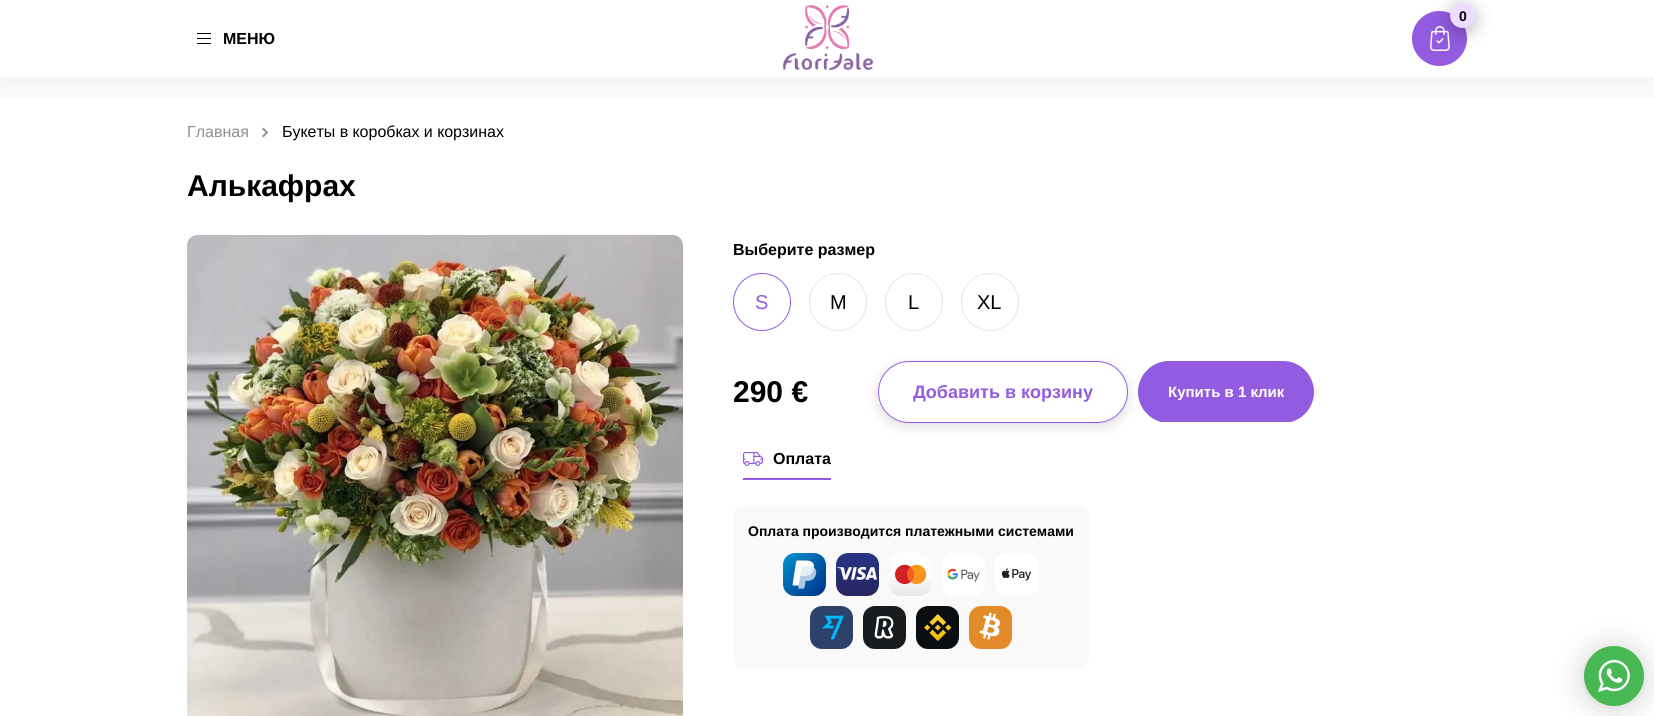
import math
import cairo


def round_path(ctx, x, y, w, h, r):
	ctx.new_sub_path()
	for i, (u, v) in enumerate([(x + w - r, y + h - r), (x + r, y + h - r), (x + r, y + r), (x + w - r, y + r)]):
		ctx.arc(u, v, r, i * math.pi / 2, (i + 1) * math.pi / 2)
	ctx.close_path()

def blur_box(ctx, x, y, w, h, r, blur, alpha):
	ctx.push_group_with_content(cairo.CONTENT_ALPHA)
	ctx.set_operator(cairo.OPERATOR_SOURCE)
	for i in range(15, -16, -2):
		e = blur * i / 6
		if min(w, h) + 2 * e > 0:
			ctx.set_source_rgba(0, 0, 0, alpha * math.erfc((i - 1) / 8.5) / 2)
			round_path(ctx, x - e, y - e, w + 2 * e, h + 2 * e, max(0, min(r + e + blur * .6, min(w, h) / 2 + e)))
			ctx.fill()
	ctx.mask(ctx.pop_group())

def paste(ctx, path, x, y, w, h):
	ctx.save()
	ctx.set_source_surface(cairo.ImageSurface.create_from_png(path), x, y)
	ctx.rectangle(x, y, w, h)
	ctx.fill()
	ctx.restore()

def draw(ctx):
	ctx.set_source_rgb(1, 1, 1)
	ctx.paint()
	ctx.set_source_rgb(0.561, 0.561, 0.561)
	ctx.new_path()
	ctx.move_to(263.5, 127.5)
	ctx.line_to(268, 132.5)
	ctx.line_to(267, 134)
	ctx.line_to(262, 129)
	ctx.close_path()
	ctx.fill()
	ctx.new_path()
	ctx.move_to(267, 131)
	ctx.line_to(268, 132.5)
	ctx.line_to(263.5, 137.5)
	ctx.line_to(262, 136)
	ctx.close_path()
	ctx.fill()
	ctx.save()
	ctx.rectangle(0, 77, 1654, 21)
	ctx.clip()
	ctx.set_source_rgb(0, 0, 0)
	blur_box(ctx, 0, 4, 1654, 77, 0, 24.5, 0.08)
	ctx.restore()
	paste(ctx, 'media/1.png', 782, 5, 91, 65)
	ctx.set_source_rgb(0.576, 0.361, 0.878)
	ctx.arc(1439.5, 38.5, 27.5, 0, 2 * math.pi)
	ctx.fill()
	paste(ctx, 'media/2.png', 1430, 26, 20, 25)
	ctx.set_source_rgb(0, 0, 0)
	blur_box(ctx, 1450, 7, 25, 25, 12.5, 8.5, 0.25)
	ctx.set_source_rgb(0.922, 0.867, 1)
	ctx.arc(1462.5, 15.5, 12.5, 0, 2 * math.pi)
	ctx.fill()
	ctx.select_font_face('Liberation Sans', cairo.FONT_SLANT_NORMAL, cairo.FONT_WEIGHT_BOLD)
	ctx.set_font_size(14)
	ctx.set_source_rgb(0, 0, 0)
	ctx.move_to(1459, 21)
	ctx.show_text('0')
	ctx.rectangle(197, 33, 14, 1)
	ctx.rectangle(197, 38, 14, 1)
	ctx.rectangle(197, 43, 14, 1)
	ctx.fill()
	ctx.set_font_size(16)
	ctx.move_to(223, 44)
	ctx.show_text('МЕНЮ')
	ctx.select_font_face('Liberation Sans')
	ctx.set_source_rgb(0.561, 0.561, 0.561)
	ctx.move_to(187, 137)
	ctx.show_text('Главная')
	ctx.set_source_rgb(0, 0, 0)
	ctx.move_to(282, 137)
	ctx.show_text('Букеты в коробках и корзинах')
	ctx.select_font_face('Liberation Sans', cairo.FONT_SLANT_NORMAL, cairo.FONT_WEIGHT_BOLD)
	ctx.set_font_size(30)
	ctx.move_to(187, 196)
	ctx.show_text('Алькафрах')
	paste(ctx, 'media/3.png', 187, 235, 496, 481)
	ctx.set_font_size(16)
	ctx.move_to(733, 255)
	ctx.show_text('Выберите размер')
	ctx.new_path()
	ctx.arc(762, 302, 28.5, 0, 2 * math.pi)
	ctx.set_source_rgb(0.576, 0.361, 0.878)
	ctx.set_line_width(1)
	ctx.stroke()
	ctx.select_font_face('Liberation Sans')
	ctx.set_font_size(20)
	ctx.move_to(755, 309)
	ctx.show_text('S')
	ctx.new_path()
	ctx.arc(838, 302, 28.5, 0, 2 * math.pi)
	ctx.set_source_rgb(0.902, 0.902, 0.902)
	ctx.stroke()
	ctx.set_source_rgb(0, 0, 0)
	ctx.move_to(830, 309)
	ctx.show_text('M')
	ctx.new_path()
	ctx.arc(914, 302, 28.5, 0, 2 * math.pi)
	ctx.set_source_rgb(0.902, 0.902, 0.902)
	ctx.stroke()
	ctx.set_source_rgb(0, 0, 0)
	ctx.move_to(908, 309)
	ctx.show_text('L')
	ctx.new_path()
	ctx.arc(990, 302, 28.5, 0, 2 * math.pi)
	ctx.set_source_rgb(0.902, 0.902, 0.902)
	ctx.stroke()
	ctx.set_source_rgb(0, 0, 0)
	ctx.move_to(977, 309)
	ctx.show_text('XL')
	ctx.select_font_face('Liberation Sans', cairo.FONT_SLANT_NORMAL, cairo.FONT_WEIGHT_BOLD)
	ctx.set_font_size(30)
	ctx.move_to(733, 402)
	ctx.show_text('290 €')
	ctx.save()
	ctx.set_fill_rule(cairo.FILL_RULE_EVEN_ODD)
	ctx.new_path()
	ctx.move_to(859, 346)
	ctx.line_to(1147, 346)
	ctx.line_to(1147, 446)
	ctx.line_to(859, 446)
	ctx.close_path()
	ctx.move_to(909, 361)
	ctx.line_to(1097, 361)
	ctx.curve_to(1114, 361, 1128, 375, 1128, 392)
	ctx.curve_to(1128, 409, 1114, 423, 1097, 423)
	ctx.line_to(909, 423)
	ctx.curve_to(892, 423, 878, 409, 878, 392)
	ctx.curve_to(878, 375, 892, 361, 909, 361)
	ctx.close_path()
	ctx.clip()
	ctx.set_source_rgb(0, 0, 0)
	blur_box(ctx, 878, 365, 250, 62, 31, 6, 0.13)
	ctx.restore()
	round_path(ctx, 878.5, 361.5, 249, 61, 30.5)
	ctx.set_source_rgb(0.576, 0.361, 0.878)
	ctx.stroke()
	ctx.set_font_size(18)
	ctx.move_to(913, 398)
	ctx.show_text('Добавить в корзину')
	round_path(ctx, 1138, 361, 176, 62, 31)
	ctx.fill()
	ctx.set_source_rgb(1, 1, 1)
	ctx.rectangle(1154, 422, 145, 1)
	ctx.fill()
	ctx.set_font_size(15)
	ctx.move_to(1168, 397)
	ctx.show_text('Купить в 1 клик')
	ctx.set_source_rgb(0.576, 0.361, 0.878)
	ctx.rectangle(743, 478, 88, 2)
	ctx.fill()
	paste(ctx, 'media/4.png', 743, 452, 20, 14)
	ctx.set_font_size(16)
	ctx.set_source_rgb(0, 0, 0)
	ctx.move_to(773, 464)
	ctx.show_text('Оплата')
	ctx.set_source_rgb(0.973, 0.973, 0.973)
	round_path(ctx, 733, 505, 356, 164, 10)
	ctx.fill()
	ctx.set_font_size(14)
	ctx.set_source_rgb(0, 0, 0)
	ctx.move_to(748, 536)
	ctx.show_text('Оплата производится платежными системами')
	paste(ctx, 'media/5.png', 783, 553, 43, 43)
	paste(ctx, 'media/6.png', 836, 553, 43, 43)
	paste(ctx, 'media/7.png', 889, 553, 43, 43)
	paste(ctx, 'media/8.png', 942, 553, 43, 43)
	paste(ctx, 'media/9.png', 995, 553, 43, 43)
	paste(ctx, 'media/10.png', 810, 606, 43, 43)
	paste(ctx, 'media/11.png', 863, 606, 43, 43)
	paste(ctx, 'media/12.png', 916, 606, 43, 43)
	paste(ctx, 'media/13.png', 969, 606, 43, 43)
	ctx.set_source_rgb(0, 0, 0)
	blur_box(ctx, 1584, 648, 60, 60, 30, 16, 0.16)
	blur_box(ctx, 1584, 647, 60, 60, 30, 3, 0.06)
	ctx.set_source_rgb(0.282, 0.722, 0.329)
	ctx.arc(1614, 676, 30, 0, 2 * math.pi)
	ctx.fill()
	paste(ctx, 'media/14.png', 1598, 659, 32, 33)


surface = cairo.ImageSurface(cairo.FORMAT_RGB24, 1654, 716)
ctx = cairo.Context(surface)
options = cairo.FontOptions()
options.set_hint_metrics(cairo.HINT_METRICS_OFF)
options.set_hint_style(cairo.HINT_STYLE_NONE)
ctx.set_font_options(options)
ctx.set_miter_limit(4)
draw(ctx)
surface.write_to_png('image.png')
